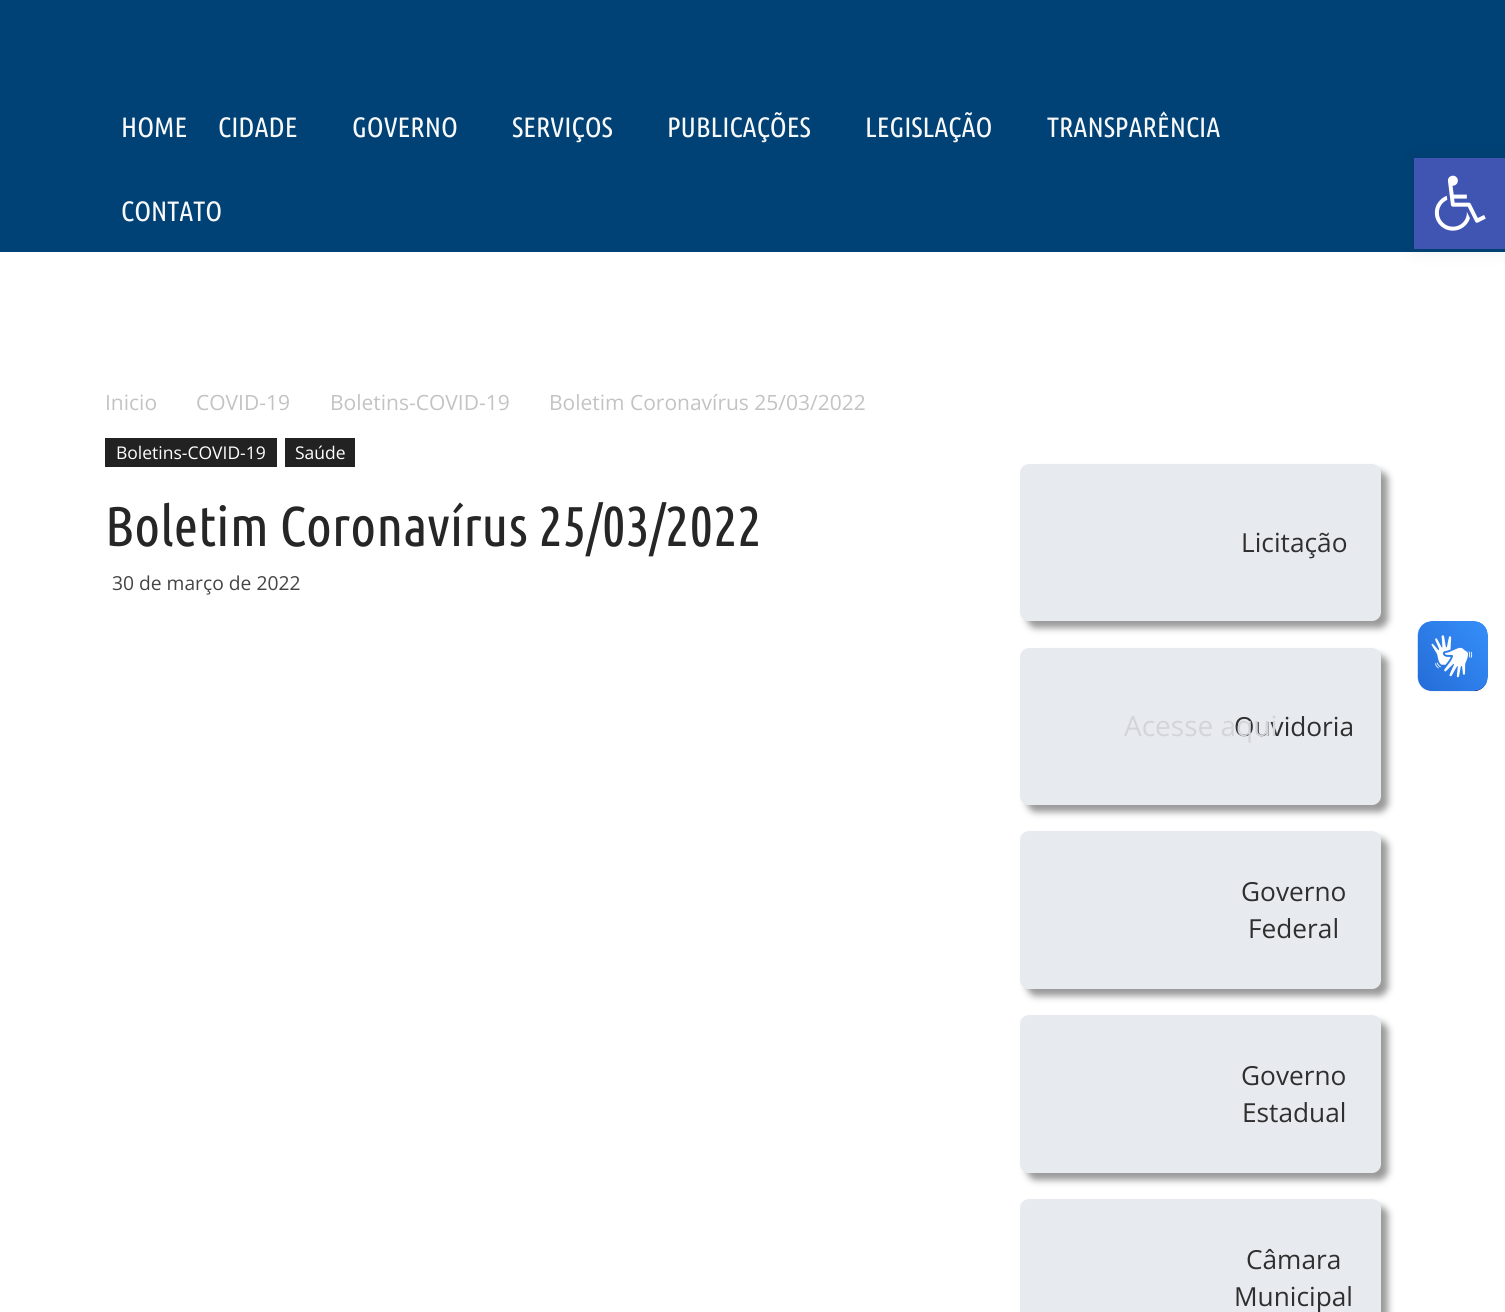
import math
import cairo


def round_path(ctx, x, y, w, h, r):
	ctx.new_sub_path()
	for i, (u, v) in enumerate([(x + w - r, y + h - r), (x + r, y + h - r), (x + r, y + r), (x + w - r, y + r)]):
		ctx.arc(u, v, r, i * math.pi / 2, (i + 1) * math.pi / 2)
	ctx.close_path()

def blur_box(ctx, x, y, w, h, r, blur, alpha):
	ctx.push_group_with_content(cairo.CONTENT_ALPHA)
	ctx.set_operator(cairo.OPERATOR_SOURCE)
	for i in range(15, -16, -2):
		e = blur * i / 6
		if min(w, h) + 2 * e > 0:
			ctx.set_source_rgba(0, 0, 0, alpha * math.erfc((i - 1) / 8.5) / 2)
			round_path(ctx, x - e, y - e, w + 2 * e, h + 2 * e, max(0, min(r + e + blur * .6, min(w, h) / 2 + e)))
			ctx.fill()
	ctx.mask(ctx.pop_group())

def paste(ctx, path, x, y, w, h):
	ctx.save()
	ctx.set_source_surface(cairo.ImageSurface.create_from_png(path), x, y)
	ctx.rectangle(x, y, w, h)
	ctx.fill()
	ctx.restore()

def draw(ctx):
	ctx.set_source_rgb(1, 1, 1)
	ctx.paint()
	ctx.set_source_rgb(0, 0.259, 0.463)
	ctx.rectangle(0, 0, 1505, 252)
	ctx.fill()
	ctx.select_font_face('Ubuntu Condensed')
	ctx.set_font_size(28)
	ctx.set_source_rgb(0.976, 0.976, 0.976)
	for x, y, s in [
		(121, 137, 'HOME'),
		(218, 137, 'CIDADE'),
		(352, 137, 'GOVERNO'),
		(512, 137, 'SERVIÇOS'),
		(667, 137, 'PUBLICAÇÕES'),
		(865, 137, 'LEGISLAÇÃO'),
		(1047, 137, 'TRANSPARÊNCIA'),
		(121, 221, 'CONTATO'),
	]:
		ctx.move_to(x, y)
		ctx.show_text(s)
	ctx.select_font_face('Open Sans')
	ctx.set_font_size(21)
	ctx.set_source_rgb(0.765, 0.765, 0.765)
	for x, y, s in [
		(105, 410, 'Inicio'),
		(196, 410, 'COVID-19'),
		(330, 410, 'Boletins-COVID-19'),
		(549, 410, 'Boletim Coronavírus 25/03/2022'),
	]:
		ctx.move_to(x, y)
		ctx.show_text(s)
	ctx.set_source_rgb(0.133, 0.133, 0.133)
	ctx.rectangle(105, 438, 172, 29)
	ctx.fill()
	ctx.set_font_size(17.5)
	ctx.set_source_rgb(1, 1, 1)
	ctx.move_to(116, 459)
	ctx.show_text('Boletins-COVID-19')
	ctx.set_source_rgb(0.133, 0.133, 0.133)
	ctx.rectangle(285, 438, 70, 29)
	ctx.fill()
	ctx.set_source_rgb(1, 1, 1)
	ctx.move_to(295, 459)
	ctx.show_text('Saúde')
	ctx.select_font_face('Ubuntu Condensed')
	ctx.set_font_size(56)
	ctx.set_source_rgb(0.149, 0.149, 0.149)
	ctx.move_to(105, 546)
	ctx.show_text('Boletim Coronavírus 25/03/2022')
	ctx.select_font_face('Open Sans')
	ctx.set_font_size(19.25)
	ctx.set_source_rgb(0.267, 0.267, 0.267)
	ctx.move_to(112, 590)
	ctx.show_text('30 de março de 2022')
	ctx.set_source_rgb(0.6, 0.6, 0.6)
	blur_box(ctx, 1027, 471, 361, 157, 9, 3.5, 1)
	ctx.set_source_rgb(0.906, 0.918, 0.937)
	round_path(ctx, 1020, 464, 361, 157, 9)
	ctx.fill()
	ctx.set_font_size(26.25)
	ctx.set_source_rgb(0.188, 0.184, 0.184)
	ctx.move_to(1241, 552)
	ctx.show_text('Licitação')
	ctx.set_source_rgb(0.6, 0.6, 0.6)
	blur_box(ctx, 1027, 655, 361, 157, 9, 3.5, 1)
	ctx.set_source_rgb(0.906, 0.918, 0.937)
	round_path(ctx, 1020, 648, 361, 157, 9)
	ctx.fill()
	ctx.set_source_rgb(0.188, 0.184, 0.184)
	ctx.move_to(1234, 736)
	ctx.show_text('Ouvidoria')
	ctx.set_font_size(28)
	ctx.set_source_rgb(0.824, 0.831, 0.851)
	ctx.move_to(1124, 736)
	ctx.show_text('Acesse aqui')
	ctx.set_source_rgb(0.6, 0.6, 0.6)
	blur_box(ctx, 1027, 838, 361, 158, 9, 3.5, 1)
	ctx.set_source_rgb(0.906, 0.918, 0.937)
	round_path(ctx, 1020, 831, 361, 158, 9)
	ctx.fill()
	ctx.set_font_size(26.25)
	ctx.set_source_rgb(0.188, 0.184, 0.184)
	ctx.move_to(1241, 901)
	ctx.show_text('Governo')
	ctx.move_to(1248, 938)
	ctx.show_text('Federal')
	ctx.set_source_rgb(0.6, 0.6, 0.6)
	blur_box(ctx, 1027, 1022, 361, 158, 9, 3.5, 1)
	ctx.set_source_rgb(0.906, 0.918, 0.937)
	round_path(ctx, 1020, 1015, 361, 158, 9)
	ctx.fill()
	ctx.set_source_rgb(0.188, 0.184, 0.184)
	ctx.move_to(1241, 1085)
	ctx.show_text('Governo')
	ctx.move_to(1242, 1122)
	ctx.show_text('Estadual')
	ctx.set_source_rgb(0.6, 0.6, 0.6)
	blur_box(ctx, 1027, 1206, 361, 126, 9, 3.5, 1)
	ctx.set_source_rgb(0.906, 0.918, 0.937)
	round_path(ctx, 1020, 1199, 361, 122, 9)
	ctx.fill()
	ctx.set_source_rgb(0.188, 0.184, 0.184)
	ctx.move_to(1246, 1269)
	ctx.show_text('Câmara')
	ctx.move_to(1234, 1306)
	ctx.show_text('Municipal')
	ctx.set_source_rgb(0, 0, 0)
	blur_box(ctx, 1414, 158, 91, 91, 0, 9, 0.1)
	ctx.set_source_rgb(0.251, 0.329, 0.698)
	ctx.rectangle(1414, 158, 91, 91)
	ctx.fill()
	paste(ctx, 'media/1.png', 1434, 175, 52, 56)
	paste(ctx, 'media/2.png', 1417, 621, 71, 71)
	paste(ctx, 'media/3.png', 1418, 621, 70, 70)


surface = cairo.ImageSurface(cairo.FORMAT_RGB24, 1505, 1312)
ctx = cairo.Context(surface)
options = cairo.FontOptions()
options.set_hint_metrics(cairo.HINT_METRICS_OFF)
options.set_hint_style(cairo.HINT_STYLE_NONE)
ctx.set_font_options(options)
ctx.set_miter_limit(4)
draw(ctx)
surface.write_to_png('image.png')
